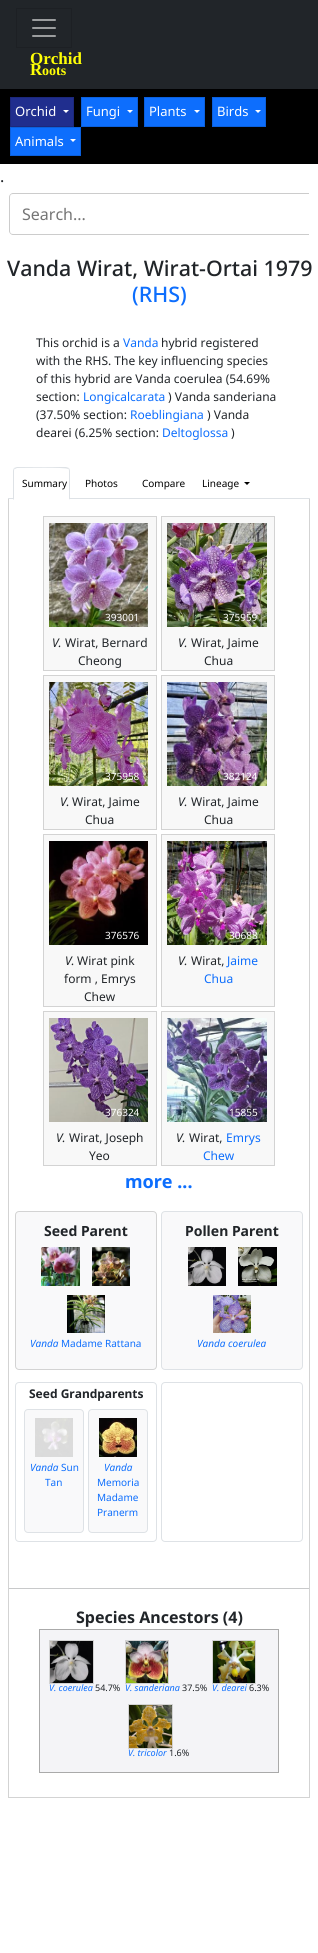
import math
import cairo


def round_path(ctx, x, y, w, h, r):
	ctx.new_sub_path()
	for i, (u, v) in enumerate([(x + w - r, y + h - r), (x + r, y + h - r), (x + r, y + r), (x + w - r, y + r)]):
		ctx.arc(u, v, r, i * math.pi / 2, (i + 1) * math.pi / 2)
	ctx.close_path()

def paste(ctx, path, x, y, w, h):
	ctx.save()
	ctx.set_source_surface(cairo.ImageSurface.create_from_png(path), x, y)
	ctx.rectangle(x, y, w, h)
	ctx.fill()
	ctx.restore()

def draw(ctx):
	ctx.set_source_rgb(1, 1, 1)
	ctx.paint()
	ctx.set_source_rgb(0.129, 0.145, 0.161)
	ctx.rectangle(0, 0, 318, 89)
	ctx.fill()
	ctx.rectangle(16.5, 8.5, 55, 39)
	ctx.set_source_rgb(0.114, 0.125, 0.141)
	ctx.set_line_width(1)
	ctx.stroke()
	paste(ctx, 'media/1.png', 32, 19, 24, 18)
	ctx.select_font_face('Liberation Serif', cairo.FONT_SLANT_NORMAL, cairo.FONT_WEIGHT_BOLD)
	ctx.set_font_size(17)
	ctx.set_source_rgb(1, 1, 0.027)
	ctx.move_to(30, 64)
	ctx.show_text('Orchid')
	ctx.move_to(30, 75)
	ctx.show_text('R')
	ctx.set_font_size(14)
	ctx.move_to(42, 75)
	ctx.show_text('oots')
	ctx.set_source_rgb(0, 0, 0)
	ctx.rectangle(0, 89, 318, 75)
	ctx.fill()
	ctx.set_source_rgb(0.125, 0.18, 0.557)
	ctx.rectangle(10.5, 97.5, 63, 29)
	ctx.fill_preserve()
	ctx.set_source_rgb(0.11, 0.157, 0.486)
	ctx.stroke()
	ctx.select_font_face('Noto Sans')
	ctx.set_font_size(13)
	ctx.set_source_rgb(1, 1, 1)
	ctx.move_to(15, 116)
	ctx.show_text('Orchid')
	ctx.new_path()
	ctx.move_to(63, 110)
	ctx.line_to(69, 110)
	ctx.line_to(66, 113)
	ctx.close_path()
	ctx.fill()
	ctx.set_source_rgb(0.051, 0.431, 0.992)
	ctx.rectangle(81.5, 97.5, 56, 29)
	ctx.fill_preserve()
	ctx.set_source_rgb(0.043, 0.376, 0.867)
	ctx.stroke()
	ctx.set_source_rgb(1, 1, 1)
	ctx.move_to(86, 116)
	ctx.show_text('Fungi')
	ctx.new_path()
	ctx.move_to(127, 110)
	ctx.line_to(133, 110)
	ctx.line_to(130, 113)
	ctx.close_path()
	ctx.fill()
	ctx.set_source_rgb(0.051, 0.431, 0.992)
	ctx.rectangle(144.5, 97.5, 60, 29)
	ctx.fill_preserve()
	ctx.set_source_rgb(0.043, 0.376, 0.867)
	ctx.stroke()
	ctx.set_source_rgb(1, 1, 1)
	ctx.move_to(149, 116)
	ctx.show_text('Plants')
	ctx.new_path()
	ctx.move_to(194, 110)
	ctx.line_to(200, 110)
	ctx.line_to(197, 113)
	ctx.close_path()
	ctx.fill()
	ctx.set_source_rgb(0.051, 0.431, 0.992)
	ctx.rectangle(212.5, 97.5, 53, 29)
	ctx.fill_preserve()
	ctx.set_source_rgb(0.043, 0.376, 0.867)
	ctx.stroke()
	ctx.set_source_rgb(1, 1, 1)
	ctx.move_to(217, 116)
	ctx.show_text('Birds')
	ctx.new_path()
	ctx.move_to(255, 110)
	ctx.line_to(261, 110)
	ctx.line_to(258, 113)
	ctx.close_path()
	ctx.fill()
	ctx.set_source_rgb(0.051, 0.431, 0.992)
	ctx.rectangle(10.5, 127.5, 70, 28)
	ctx.fill_preserve()
	ctx.set_source_rgb(0.043, 0.376, 0.867)
	ctx.stroke()
	ctx.set_source_rgb(1, 1, 1)
	ctx.move_to(15, 146)
	ctx.show_text('Animals')
	ctx.new_path()
	ctx.move_to(70, 139)
	ctx.line_to(76, 139)
	ctx.line_to(73, 142)
	ctx.close_path()
	ctx.fill()
	ctx.set_font_size(16)
	ctx.set_source_rgb(0.129, 0.145, 0.161)
	ctx.move_to(0, 182)
	ctx.show_text('.')
	ctx.set_source_rgb(0.8, 0.8, 0.8)
	ctx.set_fill_rule(cairo.FILL_RULE_EVEN_ODD)
	ctx.new_path()
	ctx.move_to(13, 193)
	ctx.line_to(309, 193)
	ctx.line_to(309, 235)
	ctx.line_to(13, 235)
	ctx.curve_to(11, 235, 9, 233, 9, 231)
	ctx.line_to(9, 197)
	ctx.curve_to(9, 195, 11, 193, 13, 193)
	ctx.close_path()
	ctx.move_to(13, 194)
	ctx.line_to(309, 194)
	ctx.line_to(309, 234)
	ctx.line_to(13, 234)
	ctx.curve_to(11, 234, 10, 233, 10, 231)
	ctx.line_to(10, 197)
	ctx.curve_to(10, 195, 11, 194, 13, 194)
	ctx.close_path()
	ctx.fill()
	ctx.set_source_rgb(0.459, 0.459, 0.459)
	ctx.move_to(22, 220)
	ctx.show_text('Search...')
	ctx.select_font_face('Noto Sans Medium')
	ctx.set_font_size(21.4)
	ctx.set_source_rgb(0.129, 0.145, 0.161)
	ctx.move_to(7, 276)
	ctx.show_text('Vanda Wirat, Wirat-Ortai 1979')
	ctx.set_source_rgb(0.051, 0.431, 0.992)
	ctx.move_to(132, 302)
	ctx.show_text('(RHS)')
	ctx.select_font_face('Noto Sans')
	ctx.set_font_size(12)
	ctx.set_source_rgb(0.129, 0.145, 0.161)
	ctx.move_to(36, 347)
	ctx.show_text('This orchid is a')
	ctx.set_source_rgb(0.051, 0.431, 0.992)
	ctx.move_to(123, 347)
	ctx.show_text('Vanda')
	ctx.set_source_rgb(0.129, 0.145, 0.161)
	for x, y, s in [
		(161, 347, 'hybrid registered'),
		(36, 365, 'with the RHS. The key influencing species'),
		(36, 383, 'of this hybrid are Vanda coerulea (54.69%'),
		(36, 401, 'section:'),
	]:
		ctx.move_to(x, y)
		ctx.show_text(s)
	ctx.set_source_rgb(0.051, 0.431, 0.992)
	ctx.move_to(83, 401)
	ctx.show_text('Longicalcarata')
	ctx.set_source_rgb(0.129, 0.145, 0.161)
	ctx.move_to(168, 401)
	ctx.show_text(') Vanda sanderiana')
	ctx.move_to(36, 419)
	ctx.show_text('(37.50% section:')
	ctx.set_source_rgb(0.051, 0.431, 0.992)
	ctx.move_to(130, 419)
	ctx.show_text('Roeblingiana')
	ctx.set_source_rgb(0.129, 0.145, 0.161)
	ctx.move_to(207, 419)
	ctx.show_text(') Vanda')
	ctx.move_to(36, 437)
	ctx.show_text('dearei (6.25% section:')
	ctx.set_source_rgb(0.051, 0.431, 0.992)
	ctx.move_to(162, 437)
	ctx.show_text('Deltoglossa')
	ctx.set_source_rgb(0.129, 0.145, 0.161)
	ctx.move_to(231, 437)
	ctx.show_text(')')
	ctx.set_source_rgb(0.871, 0.886, 0.902)
	ctx.rectangle(8, 498, 302, 1)
	ctx.fill()
	ctx.set_source_rgb(1, 1, 1)
	ctx.new_path()
	ctx.move_to(17, 467)
	ctx.line_to(66, 467)
	ctx.curve_to(68, 467, 70, 469, 70, 471)
	ctx.line_to(70, 500)
	ctx.line_to(13, 500)
	ctx.line_to(13, 471)
	ctx.curve_to(13, 469, 15, 467, 17, 467)
	ctx.close_path()
	ctx.fill()
	ctx.set_source_rgb(0.871, 0.886, 0.902)
	ctx.set_fill_rule(cairo.FILL_RULE_WINDING)
	ctx.new_path()
	ctx.move_to(17, 467)
	ctx.line_to(14, 468)
	ctx.line_to(15, 469)
	ctx.line_to(17, 468)
	ctx.curve_to(23, 468, 66, 467, 68, 469)
	ctx.line_to(69, 468)
	ctx.line_to(66, 467)
	ctx.close_path()
	ctx.fill()
	ctx.new_path()
	ctx.move_to(70, 500)
	ctx.line_to(70, 471)
	ctx.curve_to(70, 470, 69.5, 469, 69, 468)
	ctx.line_to(68, 469)
	ctx.curve_to(69, 469, 69, 470, 69, 471)
	ctx.line_to(69, 499)
	ctx.close_path()
	ctx.fill()
	ctx.set_source_rgb(1, 1, 1)
	ctx.new_path()
	ctx.move_to(70, 500)
	ctx.line_to(69, 499)
	ctx.line_to(14, 499)
	ctx.line_to(13, 500)
	ctx.close_path()
	ctx.fill()
	ctx.set_source_rgb(0.871, 0.886, 0.902)
	ctx.new_path()
	ctx.move_to(13, 500)
	ctx.line_to(14, 499)
	ctx.line_to(14, 471)
	ctx.curve_to(14, 470, 14, 469, 15, 469)
	ctx.line_to(14, 468)
	ctx.curve_to(13.5, 469, 13, 470, 13, 471)
	ctx.close_path()
	ctx.fill()
	ctx.set_font_size(10)
	ctx.set_source_rgb(0, 0, 0)
	for x, y, s in [
		(22, 487, 'Summary'),
		(85, 487, 'Photos'),
		(142, 487, 'Compare'),
		(202, 487, 'Lineage'),
	]:
		ctx.move_to(x, y)
		ctx.show_text(s)
	ctx.new_path()
	ctx.move_to(244, 482)
	ctx.line_to(250, 482)
	ctx.line_to(247, 485)
	ctx.close_path()
	ctx.fill()
	ctx.set_source_rgb(0.827, 0.827, 0.827)
	ctx.rectangle(309, 499, 1, 1299)
	ctx.rectangle(8, 1797, 302, 1)
	ctx.rectangle(8, 499, 1, 1299)
	ctx.fill()
	ctx.set_source_rgb(0.969, 0.969, 0.969)
	ctx.rectangle(43.5, 516.5, 113, 154)
	ctx.fill_preserve()
	ctx.set_source_rgb(0.827, 0.827, 0.827)
	ctx.stroke()
	paste(ctx, 'media/2.png', 49, 523, 99, 104)
	ctx.set_source_rgb(1, 1, 1)
	ctx.move_to(105, 621)
	ctx.show_text('393001')
	ctx.select_font_face('Noto Sans', cairo.FONT_SLANT_ITALIC)
	ctx.set_font_size(12)
	ctx.set_source_rgb(0.129, 0.145, 0.161)
	ctx.move_to(52, 647)
	ctx.show_text('V.')
	ctx.select_font_face('Noto Sans')
	ctx.move_to(65, 647)
	ctx.show_text('Wirat, Bernard')
	ctx.move_to(78, 665)
	ctx.show_text('Cheong')
	ctx.set_source_rgb(0.969, 0.969, 0.969)
	ctx.rectangle(161.5, 516.5, 113, 154)
	ctx.fill_preserve()
	ctx.set_source_rgb(0.827, 0.827, 0.827)
	ctx.stroke()
	paste(ctx, 'media/3.png', 167, 523, 100, 104)
	ctx.set_font_size(10)
	ctx.set_source_rgb(1, 1, 1)
	ctx.move_to(223, 621)
	ctx.show_text('375959')
	ctx.select_font_face('Noto Sans', cairo.FONT_SLANT_ITALIC)
	ctx.set_font_size(12)
	ctx.set_source_rgb(0.129, 0.145, 0.161)
	ctx.move_to(178, 647)
	ctx.show_text('V.')
	ctx.select_font_face('Noto Sans')
	ctx.move_to(191, 647)
	ctx.show_text('Wirat, Jaime')
	ctx.move_to(204, 665)
	ctx.show_text('Chua')
	ctx.set_source_rgb(0.969, 0.969, 0.969)
	ctx.rectangle(43.5, 675.5, 113, 154)
	ctx.fill_preserve()
	ctx.set_source_rgb(0.827, 0.827, 0.827)
	ctx.stroke()
	paste(ctx, 'media/4.png', 49, 682, 99, 104)
	ctx.set_font_size(10)
	ctx.set_source_rgb(1, 1, 1)
	ctx.move_to(105, 780)
	ctx.show_text('375958')
	ctx.select_font_face('Noto Sans', cairo.FONT_SLANT_ITALIC)
	ctx.set_font_size(12)
	ctx.set_source_rgb(0.129, 0.145, 0.161)
	ctx.move_to(60, 806)
	ctx.show_text('V.')
	ctx.select_font_face('Noto Sans')
	ctx.move_to(72, 806)
	ctx.show_text('Wirat, Jaime')
	ctx.move_to(85, 824)
	ctx.show_text('Chua')
	ctx.set_source_rgb(0.969, 0.969, 0.969)
	ctx.rectangle(161.5, 675.5, 113, 154)
	ctx.fill_preserve()
	ctx.set_source_rgb(0.827, 0.827, 0.827)
	ctx.stroke()
	paste(ctx, 'media/5.png', 167, 682, 100, 104)
	ctx.set_font_size(10)
	ctx.set_source_rgb(1, 1, 1)
	ctx.move_to(223, 780)
	ctx.show_text('382124')
	ctx.select_font_face('Noto Sans', cairo.FONT_SLANT_ITALIC)
	ctx.set_font_size(12)
	ctx.set_source_rgb(0.129, 0.145, 0.161)
	ctx.move_to(178, 806)
	ctx.show_text('V.')
	ctx.select_font_face('Noto Sans')
	ctx.move_to(191, 806)
	ctx.show_text('Wirat, Jaime')
	ctx.move_to(204, 824)
	ctx.show_text('Chua')
	ctx.set_source_rgb(0.969, 0.969, 0.969)
	ctx.rectangle(43.5, 834.5, 113, 172)
	ctx.fill_preserve()
	ctx.set_source_rgb(0.827, 0.827, 0.827)
	ctx.stroke()
	paste(ctx, 'media/6.png', 49, 841, 99, 104)
	ctx.set_font_size(10)
	ctx.set_source_rgb(1, 1, 1)
	ctx.move_to(105, 939)
	ctx.show_text('376576')
	ctx.select_font_face('Noto Sans', cairo.FONT_SLANT_ITALIC)
	ctx.set_font_size(12)
	ctx.set_source_rgb(0.129, 0.145, 0.161)
	ctx.move_to(65, 965)
	ctx.show_text('V.')
	ctx.select_font_face('Noto Sans')
	for x, y, s in [
		(77, 965, 'Wirat pink'),
		(64, 983, 'form , Emrys'),
		(84, 1001, 'Chew'),
	]:
		ctx.move_to(x, y)
		ctx.show_text(s)
	ctx.set_source_rgb(0.969, 0.969, 0.969)
	ctx.rectangle(161.5, 834.5, 113, 172)
	ctx.fill_preserve()
	ctx.set_source_rgb(0.827, 0.827, 0.827)
	ctx.stroke()
	paste(ctx, 'media/7.png', 167, 841, 100, 104)
	ctx.set_font_size(10)
	ctx.set_source_rgb(1, 1, 1)
	ctx.move_to(229, 939)
	ctx.show_text('30688')
	ctx.select_font_face('Noto Sans', cairo.FONT_SLANT_ITALIC)
	ctx.set_font_size(12)
	ctx.set_source_rgb(0.129, 0.145, 0.161)
	ctx.move_to(178, 965)
	ctx.show_text('V.')
	ctx.select_font_face('Noto Sans')
	ctx.move_to(191, 965)
	ctx.show_text('Wirat,')
	ctx.set_source_rgb(0.051, 0.431, 0.992)
	ctx.move_to(227, 965)
	ctx.show_text('Jaime')
	ctx.move_to(204, 983)
	ctx.show_text('Chua')
	ctx.set_source_rgb(0.969, 0.969, 0.969)
	ctx.rectangle(43.5, 1011.5, 113, 154)
	ctx.fill_preserve()
	ctx.set_source_rgb(0.827, 0.827, 0.827)
	ctx.stroke()
	paste(ctx, 'media/8.png', 49, 1018, 99, 104)
	ctx.set_font_size(10)
	ctx.set_source_rgb(1, 1, 1)
	ctx.move_to(105, 1116)
	ctx.show_text('376324')
	ctx.select_font_face('Noto Sans', cairo.FONT_SLANT_ITALIC)
	ctx.set_font_size(12)
	ctx.set_source_rgb(0.129, 0.145, 0.161)
	ctx.move_to(56, 1142)
	ctx.show_text('V.')
	ctx.select_font_face('Noto Sans')
	ctx.move_to(69, 1142)
	ctx.show_text('Wirat, Joseph')
	ctx.move_to(89, 1160)
	ctx.show_text('Yeo')
	ctx.set_source_rgb(0.969, 0.969, 0.969)
	ctx.rectangle(161.5, 1011.5, 113, 154)
	ctx.fill_preserve()
	ctx.set_source_rgb(0.827, 0.827, 0.827)
	ctx.stroke()
	paste(ctx, 'media/9.png', 167, 1018, 100, 104)
	ctx.set_font_size(10)
	ctx.set_source_rgb(1, 1, 1)
	ctx.move_to(229, 1116)
	ctx.show_text('15855')
	ctx.select_font_face('Noto Sans', cairo.FONT_SLANT_ITALIC)
	ctx.set_font_size(12)
	ctx.set_source_rgb(0.129, 0.145, 0.161)
	ctx.move_to(176, 1142)
	ctx.show_text('V.')
	ctx.select_font_face('Noto Sans')
	ctx.move_to(189, 1142)
	ctx.show_text('Wirat,')
	ctx.set_source_rgb(0.051, 0.431, 0.992)
	ctx.move_to(226, 1142)
	ctx.show_text('Emrys')
	ctx.move_to(203, 1160)
	ctx.show_text('Chew')
	ctx.select_font_face('Noto Sans', cairo.FONT_SLANT_NORMAL, cairo.FONT_WEIGHT_BOLD)
	ctx.set_font_size(18)
	ctx.move_to(125, 1188)
	ctx.show_text('more ...')
	ctx.set_source_rgb(0.973, 0.976, 0.98)
	round_path(ctx, 15.5, 1211.5, 141, 158, 3.5)
	ctx.fill_preserve()
	ctx.set_source_rgb(0.827, 0.827, 0.827)
	ctx.stroke()
	ctx.set_font_size(14)
	ctx.set_source_rgb(0.129, 0.145, 0.161)
	ctx.move_to(44, 1236)
	ctx.show_text('Seed Parent')
	paste(ctx, 'media/10.png', 41, 1247, 39, 39)
	paste(ctx, 'media/11.png', 92, 1247, 38, 39)
	paste(ctx, 'media/12.png', 67, 1295, 38, 38)
	ctx.select_font_face('Noto Sans', cairo.FONT_SLANT_ITALIC)
	ctx.set_font_size(10)
	ctx.set_source_rgb(0.051, 0.431, 0.992)
	ctx.move_to(30, 1347)
	ctx.show_text('Vanda')
	ctx.select_font_face('Noto Sans')
	ctx.move_to(61, 1347)
	ctx.show_text('Madame Rattana')
	ctx.set_source_rgb(0.973, 0.976, 0.98)
	round_path(ctx, 161.5, 1211.5, 141, 158, 3.5)
	ctx.fill_preserve()
	ctx.set_source_rgb(0.871, 0.886, 0.902)
	ctx.stroke()
	ctx.select_font_face('Noto Sans', cairo.FONT_SLANT_NORMAL, cairo.FONT_WEIGHT_BOLD)
	ctx.set_font_size(14)
	ctx.set_source_rgb(0.129, 0.145, 0.161)
	ctx.move_to(185, 1236)
	ctx.show_text('Pollen Parent')
	paste(ctx, 'media/13.png', 188, 1247, 38, 39)
	paste(ctx, 'media/14.png', 238, 1247, 39, 39)
	paste(ctx, 'media/15.png', 213, 1295, 38, 38)
	ctx.select_font_face('Noto Sans', cairo.FONT_SLANT_ITALIC)
	ctx.set_font_size(10)
	ctx.set_source_rgb(0.051, 0.431, 0.992)
	ctx.move_to(197, 1347)
	ctx.show_text('Vanda coerulea')
	round_path(ctx, 15.5, 1382.5, 141, 159, 3.5)
	ctx.set_source_rgb(0.871, 0.886, 0.902)
	ctx.stroke()
	ctx.select_font_face('Noto Sans', cairo.FONT_SLANT_NORMAL, cairo.FONT_WEIGHT_BOLD)
	ctx.set_font_size(12)
	ctx.set_source_rgb(0.129, 0.145, 0.161)
	ctx.move_to(29, 1398)
	ctx.show_text('Seed Grandparents')
	ctx.set_source_rgb(0.973, 0.976, 0.98)
	round_path(ctx, 24.5, 1409.5, 59, 123, 3.5)
	ctx.fill_preserve()
	ctx.set_source_rgb(0.871, 0.886, 0.902)
	ctx.stroke()
	paste(ctx, 'media/16.png', 35, 1418, 38, 39)
	ctx.select_font_face('Noto Sans', cairo.FONT_SLANT_ITALIC)
	ctx.set_font_size(10)
	ctx.set_source_rgb(0.051, 0.431, 0.992)
	ctx.move_to(30, 1471)
	ctx.show_text('Vanda')
	ctx.select_font_face('Noto Sans')
	ctx.move_to(61, 1471)
	ctx.show_text('Sun')
	ctx.move_to(45, 1486)
	ctx.show_text('Tan')
	ctx.set_source_rgb(0.973, 0.976, 0.98)
	round_path(ctx, 88.5, 1409.5, 59, 123, 3.5)
	ctx.fill_preserve()
	ctx.set_source_rgb(0.871, 0.886, 0.902)
	ctx.stroke()
	paste(ctx, 'media/17.png', 99, 1418, 38, 39)
	ctx.select_font_face('Noto Sans', cairo.FONT_SLANT_ITALIC)
	ctx.set_source_rgb(0.051, 0.431, 0.992)
	ctx.move_to(104, 1471)
	ctx.show_text('Vanda')
	ctx.select_font_face('Noto Sans')
	for x, y, s in [
		(97, 1486, 'Memoria'),
		(97, 1501, 'Madame'),
		(97, 1516, 'Pranerm'),
	]:
		ctx.move_to(x, y)
		ctx.show_text(s)
	round_path(ctx, 161.5, 1382.5, 141, 159, 3.5)
	ctx.set_source_rgb(0.871, 0.886, 0.902)
	ctx.stroke()
	ctx.set_source_rgb(0.784, 0.788, 0.792)
	ctx.rectangle(9, 1588, 300, 1)
	ctx.fill()
	ctx.select_font_face('Noto Sans', cairo.FONT_SLANT_NORMAL, cairo.FONT_WEIGHT_BOLD)
	ctx.set_font_size(16)
	ctx.set_source_rgb(0.129, 0.145, 0.161)
	ctx.move_to(76, 1623)
	ctx.show_text('Species Ancestors (4)')
	ctx.set_source_rgb(0.957, 0.957, 0.965)
	ctx.rectangle(39.5, 1629.5, 239, 143)
	ctx.fill_preserve()
	ctx.set_source_rgb(0.667, 0.667, 0.667)
	ctx.stroke()
	ctx.rectangle(49.5, 1640.5, 44, 43)
	ctx.set_source_rgb(0.827, 0.827, 0.827)
	ctx.stroke()
	paste(ctx, 'media/18.png', 50, 1641, 43, 42)
	ctx.select_font_face('Noto Sans', cairo.FONT_SLANT_ITALIC)
	ctx.set_font_size(9)
	ctx.set_source_rgb(0.051, 0.431, 0.992)
	ctx.move_to(49, 1691)
	ctx.show_text('V. coerulea')
	ctx.select_font_face('Noto Sans')
	ctx.set_source_rgb(0.129, 0.145, 0.161)
	ctx.move_to(95, 1691)
	ctx.show_text('54.7%')
	ctx.rectangle(125.5, 1640.5, 43, 43)
	ctx.set_source_rgb(0.827, 0.827, 0.827)
	ctx.stroke()
	paste(ctx, 'media/19.png', 126, 1641, 42, 42)
	ctx.select_font_face('Noto Sans', cairo.FONT_SLANT_ITALIC)
	ctx.set_source_rgb(0.051, 0.431, 0.992)
	ctx.move_to(125, 1691)
	ctx.show_text('V. sanderiana')
	ctx.select_font_face('Noto Sans')
	ctx.set_source_rgb(0.129, 0.145, 0.161)
	ctx.move_to(182, 1691)
	ctx.show_text('37.5%')
	ctx.rectangle(212.5, 1640.5, 43, 43)
	ctx.set_source_rgb(0.827, 0.827, 0.827)
	ctx.stroke()
	paste(ctx, 'media/20.png', 213, 1641, 42, 42)
	ctx.select_font_face('Noto Sans', cairo.FONT_SLANT_ITALIC)
	ctx.set_source_rgb(0.051, 0.431, 0.992)
	ctx.move_to(212, 1691)
	ctx.show_text('V. dearei')
	ctx.select_font_face('Noto Sans')
	ctx.set_source_rgb(0.129, 0.145, 0.161)
	ctx.move_to(249, 1691)
	ctx.show_text('6.3%')
	ctx.rectangle(128.5, 1704.5, 44, 44)
	ctx.set_source_rgb(0.827, 0.827, 0.827)
	ctx.stroke()
	paste(ctx, 'media/21.png', 129, 1705, 43, 43)
	ctx.select_font_face('Noto Sans', cairo.FONT_SLANT_ITALIC)
	ctx.set_source_rgb(0.051, 0.431, 0.992)
	ctx.move_to(128, 1756)
	ctx.show_text('V. tricolor')
	ctx.select_font_face('Noto Sans')
	ctx.set_source_rgb(0.129, 0.145, 0.161)
	ctx.move_to(169, 1756)
	ctx.show_text('1.6%')


surface = cairo.ImageSurface(cairo.FORMAT_RGB24, 318, 1953)
ctx = cairo.Context(surface)
options = cairo.FontOptions()
options.set_hint_metrics(cairo.HINT_METRICS_OFF)
options.set_hint_style(cairo.HINT_STYLE_NONE)
ctx.set_font_options(options)
ctx.set_miter_limit(4)
draw(ctx)
surface.write_to_png('image.png')
